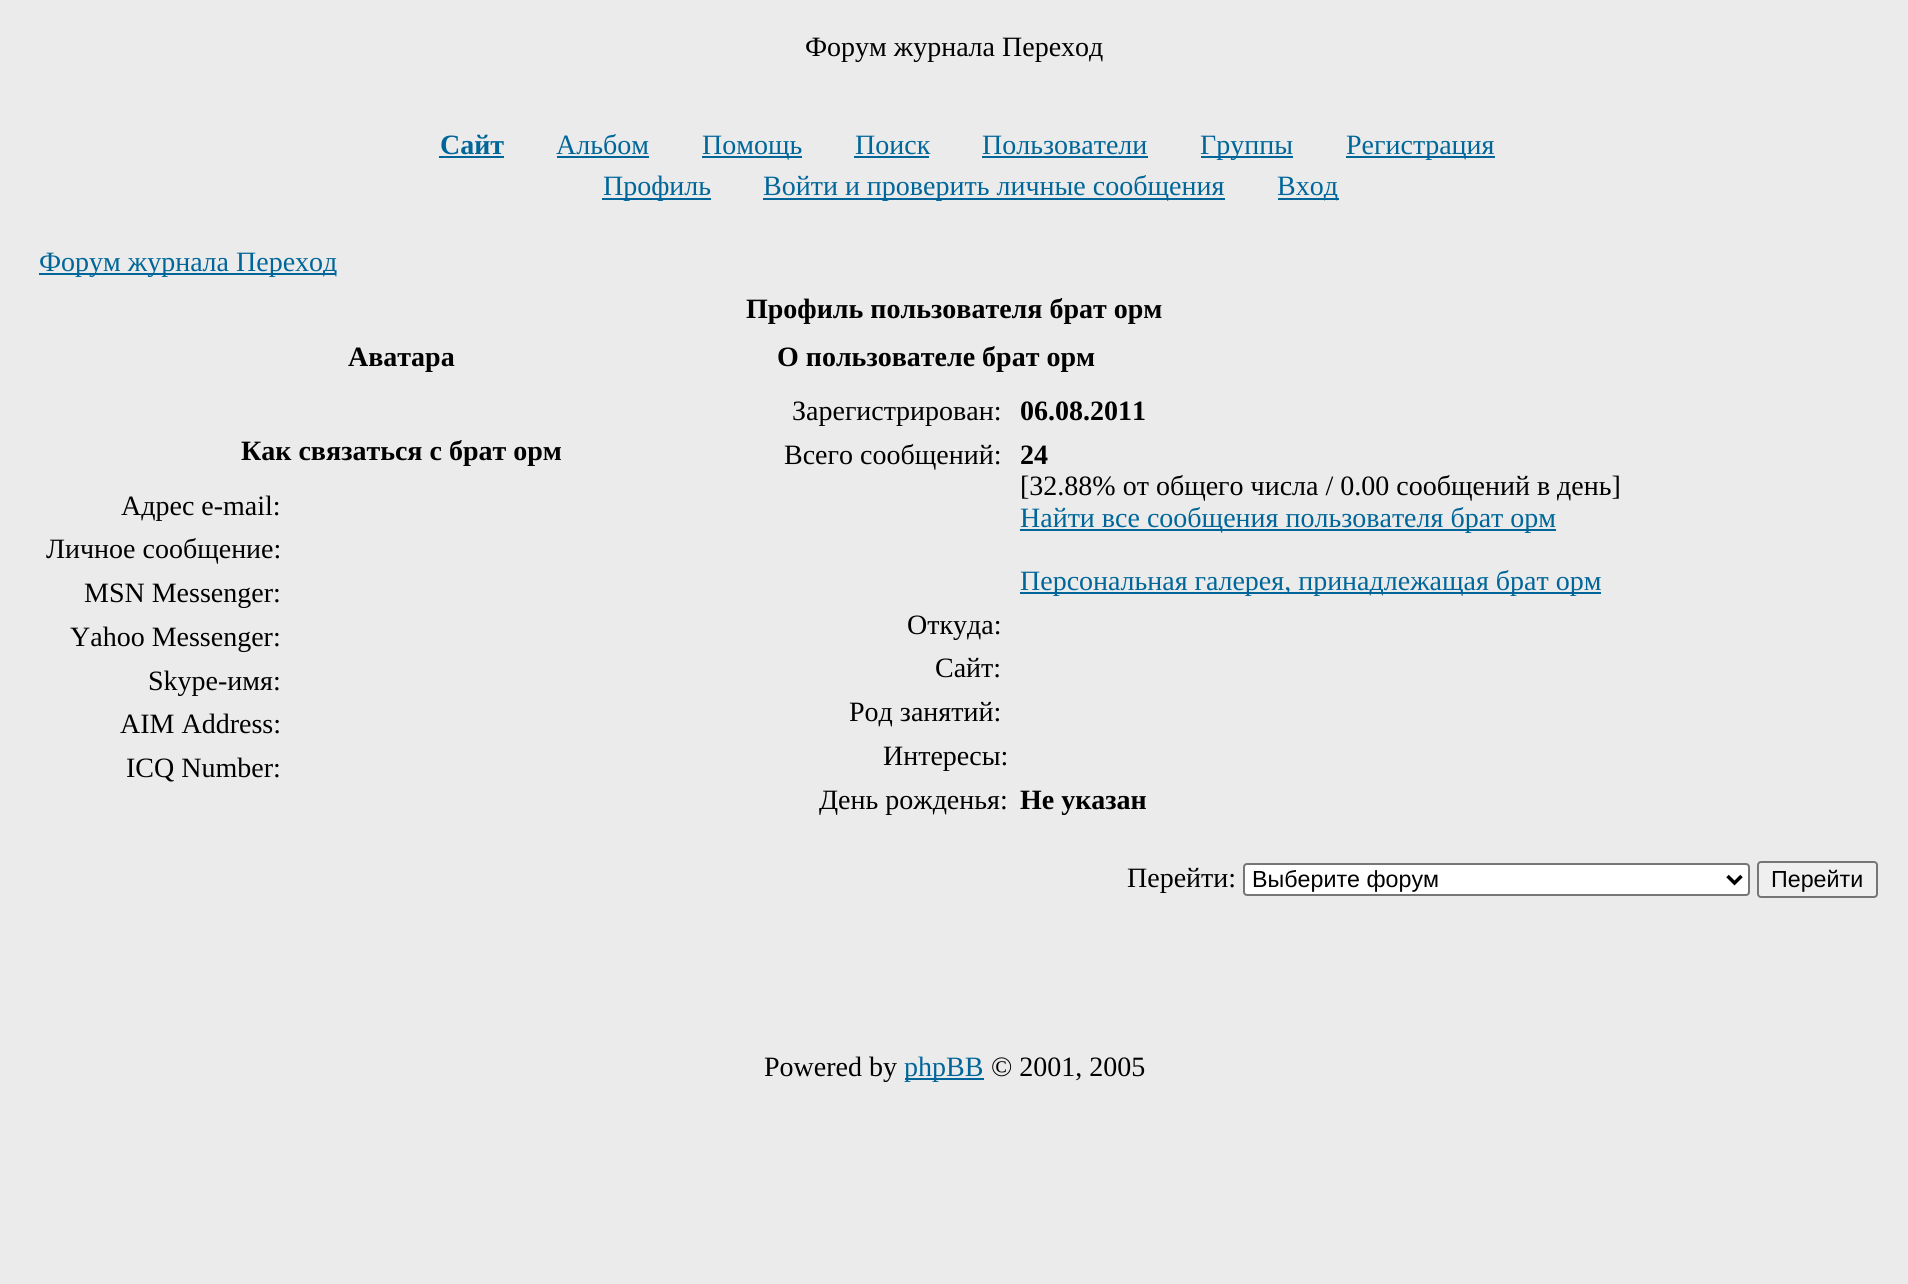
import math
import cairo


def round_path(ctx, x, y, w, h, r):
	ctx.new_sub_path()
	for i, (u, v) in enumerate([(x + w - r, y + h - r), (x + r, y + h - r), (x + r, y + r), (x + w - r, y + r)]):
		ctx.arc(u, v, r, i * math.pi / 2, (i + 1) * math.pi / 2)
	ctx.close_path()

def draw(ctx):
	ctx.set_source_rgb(0.918, 0.918, 0.918)
	ctx.paint()
	ctx.select_font_face('Liberation Serif')
	ctx.set_font_size(28)
	ctx.set_source_rgb(0, 0, 0)
	ctx.move_to(805, 56)
	ctx.show_text('Форум журнала Переход')
	ctx.select_font_face('Liberation Serif', cairo.FONT_SLANT_NORMAL, cairo.FONT_WEIGHT_BOLD)
	ctx.set_source_rgb(0, 0.4, 0.6)
	ctx.move_to(440, 154)
	ctx.show_text('Сайт')
	ctx.rectangle(439, 156, 65, 2)
	ctx.fill()
	ctx.select_font_face('Liberation Serif')
	ctx.move_to(556, 154)
	ctx.show_text('Альбом')
	ctx.rectangle(557, 156, 92, 2)
	ctx.fill()
	ctx.rectangle(702, 156, 100, 2)
	ctx.fill()
	ctx.move_to(702, 154)
	ctx.show_text('Помощь')
	ctx.move_to(855, 154)
	ctx.show_text('Поиск')
	ctx.rectangle(854, 156, 75, 2)
	ctx.fill()
	ctx.move_to(982, 154)
	ctx.show_text('Пользователи')
	ctx.rectangle(982, 156, 166, 2)
	ctx.fill()
	ctx.rectangle(1201, 156, 92, 2)
	ctx.fill()
	ctx.move_to(1200, 154)
	ctx.show_text('Группы')
	ctx.rectangle(1346, 156, 149, 2)
	ctx.fill()
	ctx.move_to(1346, 154)
	ctx.show_text('Регистрация')
	ctx.rectangle(602, 198, 109, 2)
	ctx.fill()
	ctx.move_to(603, 195)
	ctx.show_text('Профиль')
	ctx.rectangle(763, 198, 462, 2)
	ctx.fill()
	ctx.move_to(763, 195)
	ctx.show_text('Войти и проверить личные сообщения')
	ctx.rectangle(1278, 198, 61, 2)
	ctx.fill()
	ctx.move_to(1277, 195)
	ctx.show_text('Вход')
	ctx.rectangle(39, 273, 297, 2)
	ctx.fill()
	ctx.move_to(39, 271)
	ctx.show_text('Форум журнала Переход')
	ctx.select_font_face('Liberation Serif', cairo.FONT_SLANT_NORMAL, cairo.FONT_WEIGHT_BOLD)
	ctx.set_source_rgb(0, 0, 0)
	for x, y, s in [
		(746, 318, 'Профиль пользователя брат орм'),
		(348, 366, 'Аватара'),
		(777, 366, 'О пользователе брат орм'),
		(241, 460, 'Как связаться с брат орм'),
	]:
		ctx.move_to(x, y)
		ctx.show_text(s)
	ctx.select_font_face('Liberation Serif')
	ctx.move_to(792, 420)
	ctx.show_text('Зарегистрирован:')
	ctx.select_font_face('Liberation Serif', cairo.FONT_SLANT_NORMAL, cairo.FONT_WEIGHT_BOLD)
	ctx.move_to(1020, 420)
	ctx.show_text('06.08.2011')
	ctx.select_font_face('Liberation Serif')
	ctx.move_to(784, 464)
	ctx.show_text('Всего сообщений:')
	ctx.select_font_face('Liberation Serif', cairo.FONT_SLANT_NORMAL, cairo.FONT_WEIGHT_BOLD)
	ctx.move_to(1020, 464)
	ctx.show_text('24')
	ctx.select_font_face('Liberation Serif')
	ctx.move_to(1020, 495)
	ctx.show_text('[32.88% от общего числа / 0.00 сообщений в день]')
	ctx.set_source_rgb(0, 0.4, 0.6)
	ctx.rectangle(1020, 529, 536, 2)
	ctx.fill()
	ctx.move_to(1020, 527)
	ctx.show_text('Найти все сообщения пользователя брат орм')
	ctx.rectangle(1020, 592, 581, 2)
	ctx.fill()
	ctx.move_to(1020, 590)
	ctx.show_text('Персональная галерея, принадлежащая брат орм')
	ctx.set_source_rgb(0, 0, 0)
	for x, y, s in [
		(907, 634, 'Откуда:'),
		(935, 677, 'Сайт:'),
		(849, 721, 'Род занятий:'),
		(883, 765, 'Интересы:'),
		(819, 809, 'День рожденья:'),
	]:
		ctx.move_to(x, y)
		ctx.show_text(s)
	ctx.select_font_face('Liberation Serif', cairo.FONT_SLANT_NORMAL, cairo.FONT_WEIGHT_BOLD)
	ctx.move_to(1020, 809)
	ctx.show_text('Не указан')
	ctx.select_font_face('Liberation Serif')
	for x, y, s in [
		(121, 515, 'Адрес e-mail:'),
		(46, 558, 'Личное сообщение:'),
		(84, 602, 'MSN Messenger:'),
		(70, 646, 'Yahoo Messenger:'),
		(148, 690, 'Skype-имя:'),
		(120, 733, 'AIM Address:'),
		(126, 777, 'ICQ Number:'),
		(1127, 887, 'Перейти:'),
	]:
		ctx.move_to(x, y)
		ctx.show_text(s)
	ctx.set_source_rgb(1, 1, 1)
	round_path(ctx, 1244, 864, 505, 31, 3)
	ctx.fill_preserve()
	ctx.set_source_rgb(0.463, 0.463, 0.463)
	ctx.stroke()
	ctx.new_path()
	ctx.move_to(1727.5, 876)
	ctx.line_to(1734.5, 883)
	ctx.line_to(1741.5, 876)
	ctx.set_source_rgb(0, 0, 0)
	ctx.set_line_width(3.5)
	ctx.stroke()
	ctx.select_font_face('Liberation Sans')
	ctx.set_font_size(23.25)
	ctx.move_to(1252, 887)
	ctx.show_text('Выберите форум')
	ctx.set_source_rgb(0.937, 0.937, 0.937)
	round_path(ctx, 1758, 862, 119, 35, 3)
	ctx.fill_preserve()
	ctx.set_source_rgb(0.463, 0.463, 0.463)
	ctx.set_line_width(2)
	ctx.stroke()
	ctx.set_source_rgb(0, 0, 0)
	ctx.move_to(1771, 887)
	ctx.show_text('Перейти')
	ctx.select_font_face('Liberation Serif')
	ctx.set_font_size(28)
	ctx.move_to(764, 1076)
	ctx.show_text('Powered by')
	ctx.set_source_rgb(0, 0.4, 0.6)
	ctx.rectangle(905, 1078, 79, 2)
	ctx.fill()
	ctx.move_to(904, 1076)
	ctx.show_text('phpBB')
	ctx.set_source_rgb(0, 0, 0)
	ctx.move_to(991, 1076)
	ctx.show_text('© 2001, 2005')


surface = cairo.ImageSurface(cairo.FORMAT_RGB24, 1908, 1284)
ctx = cairo.Context(surface)
options = cairo.FontOptions()
options.set_hint_metrics(cairo.HINT_METRICS_OFF)
options.set_hint_style(cairo.HINT_STYLE_NONE)
ctx.set_font_options(options)
ctx.set_miter_limit(4)
draw(ctx)
surface.write_to_png('image.png')
